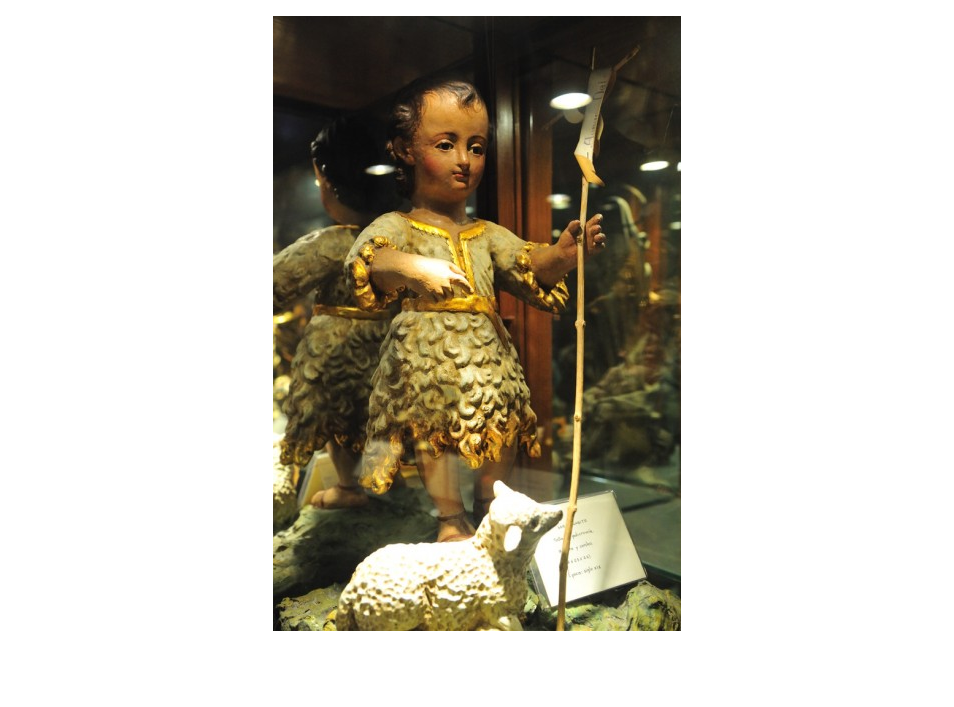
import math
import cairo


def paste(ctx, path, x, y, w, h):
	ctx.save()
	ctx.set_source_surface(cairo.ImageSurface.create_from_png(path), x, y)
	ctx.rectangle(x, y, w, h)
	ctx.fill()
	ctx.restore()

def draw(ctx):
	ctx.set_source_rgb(1, 1, 1)
	ctx.paint()
	paste(ctx, 'media/1.png', 273, 16, 408, 615)


surface = cairo.ImageSurface(cairo.FORMAT_RGB24, 954, 707)
ctx = cairo.Context(surface)
options = cairo.FontOptions()
options.set_hint_metrics(cairo.HINT_METRICS_OFF)
options.set_hint_style(cairo.HINT_STYLE_NONE)
ctx.set_font_options(options)
ctx.set_miter_limit(4)
draw(ctx)
surface.write_to_png('image.png')
